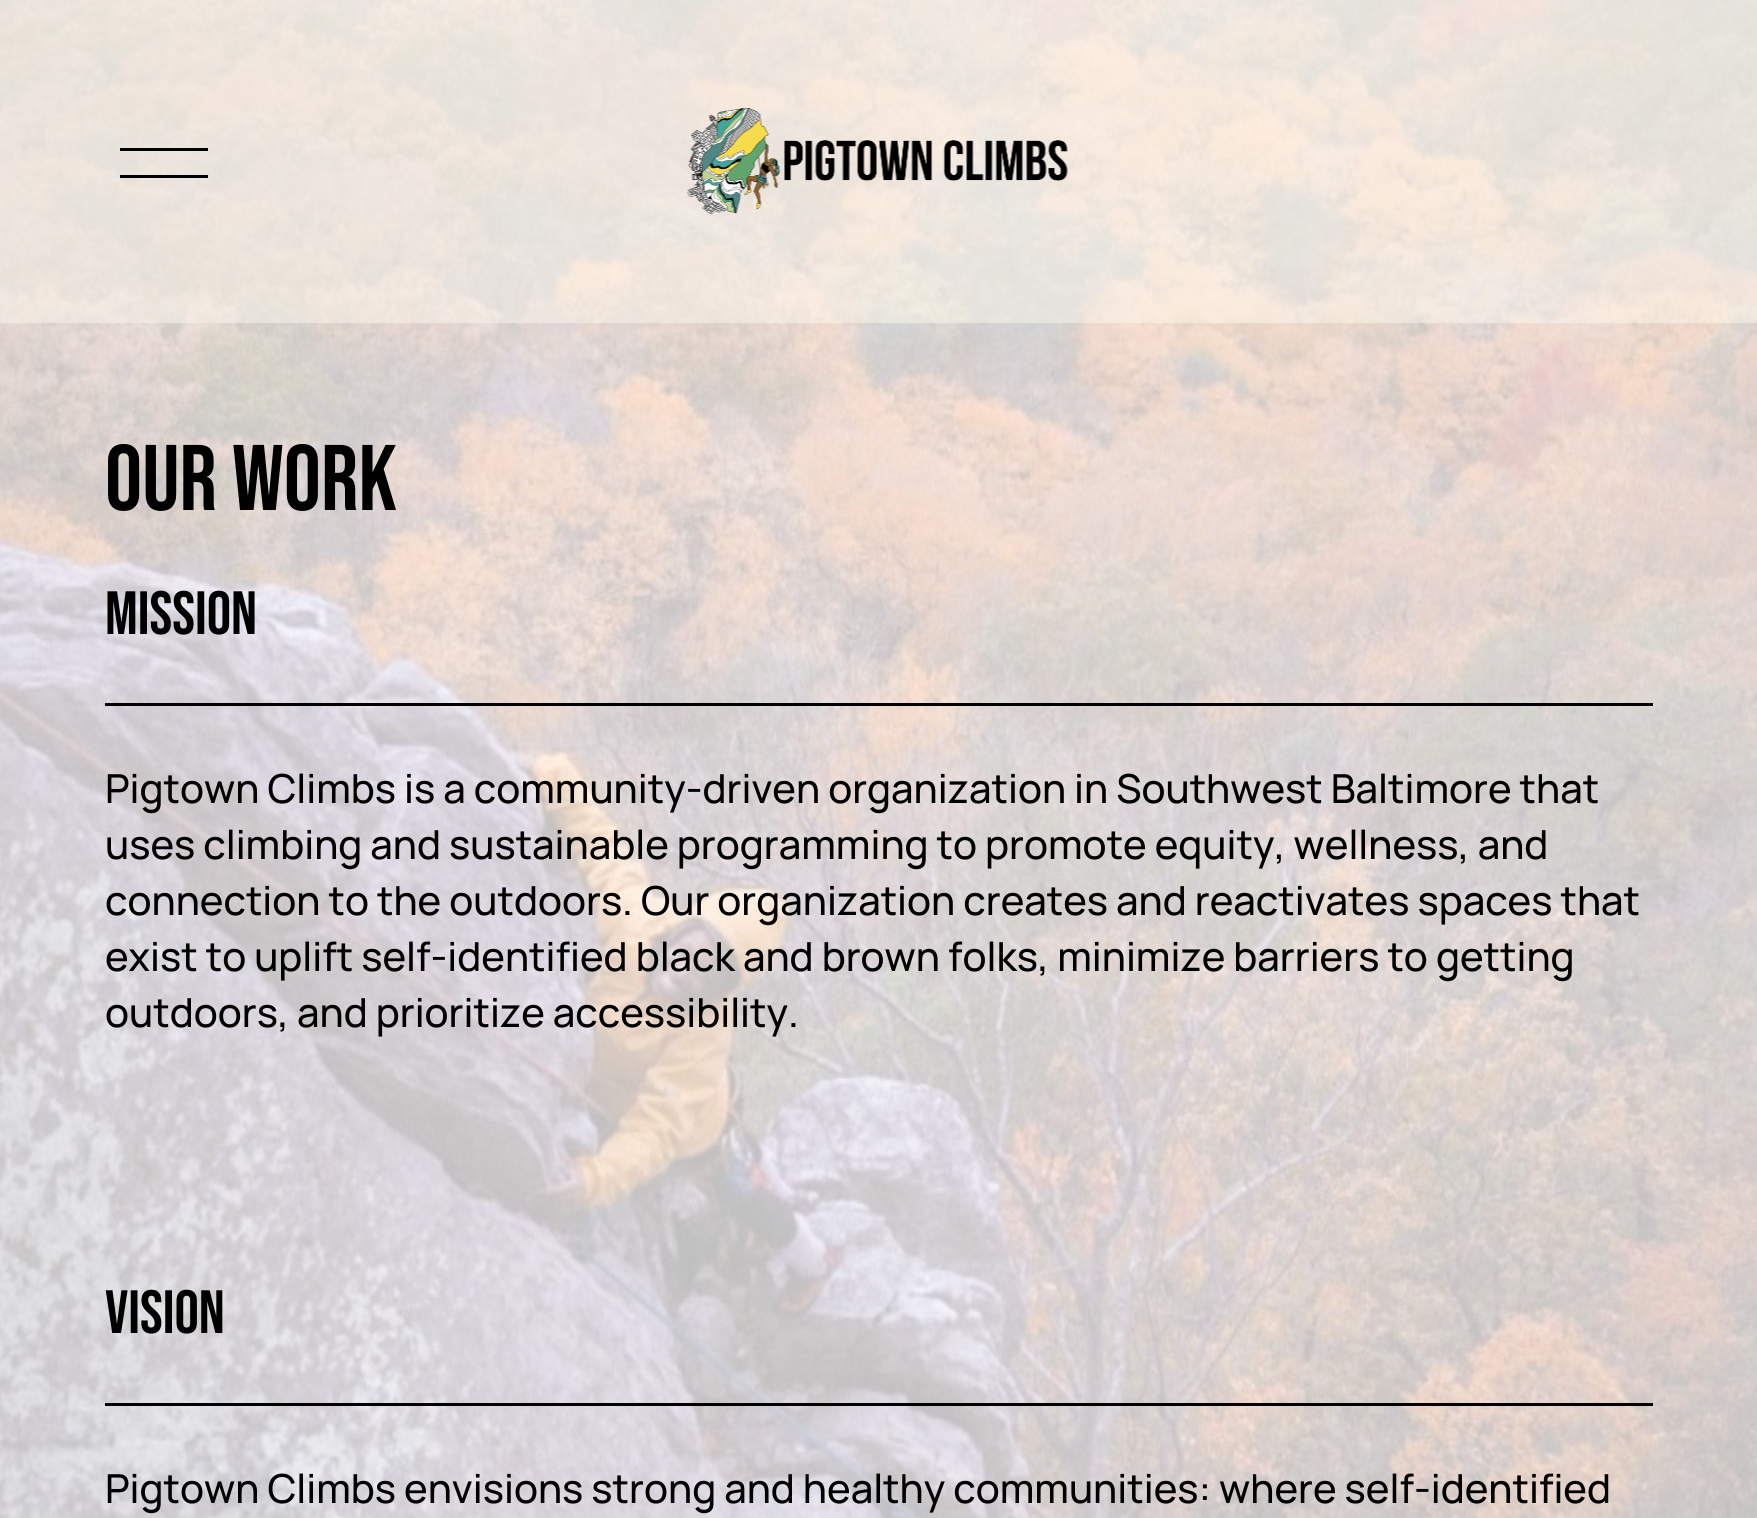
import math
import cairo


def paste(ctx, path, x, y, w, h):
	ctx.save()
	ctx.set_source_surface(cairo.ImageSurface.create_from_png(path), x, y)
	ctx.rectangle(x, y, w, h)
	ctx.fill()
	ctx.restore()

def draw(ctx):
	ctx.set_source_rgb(1, 1, 1)
	ctx.paint()
	paste(ctx, 'media/2.png', 0, 0, 1757, 1518)
	ctx.set_source_rgba(1, 0.988, 0.941, 0.45)
	ctx.rectangle(0, 0, 1757, 323)
	ctx.fill()
	ctx.set_source_rgb(0, 0, 0)
	ctx.rectangle(120, 148, 88, 3)
	ctx.rectangle(120, 175, 88, 3)
	ctx.fill()
	paste(ctx, 'media/1.png', 687, 108, 381, 107)
	ctx.select_font_face('Bebas Neue')
	ctx.set_font_size(93)
	ctx.move_to(105, 510)
	ctx.show_text('OUR WORK')
	ctx.set_font_size(61)
	ctx.move_to(105, 634)
	ctx.show_text('MISSION')
	ctx.rectangle(105, 703, 1548, 3)
	ctx.fill()
	ctx.select_font_face('Manrope Medium')
	ctx.set_font_size(40)
	for x, y, s in [
		(105, 803, 'Pigtown Climbs is a community-driven organization in Southwest Baltimore that'),
		(105, 859, 'uses climbing and sustainable programming to promote equity, wellness, and'),
		(105, 915, 'connection to the outdoors. Our organization creates and reactivates spaces that'),
		(105, 971, 'exist to uplift self-identified black and brown folks, minimize barriers to getting'),
		(105, 1027, 'outdoors, and prioritize accessibility.'),
	]:
		ctx.move_to(x, y)
		ctx.show_text(s)
	ctx.select_font_face('Bebas Neue')
	ctx.set_font_size(61)
	ctx.move_to(105, 1333)
	ctx.show_text('VISION')
	ctx.rectangle(105, 1403, 1548, 3)
	ctx.fill()
	ctx.select_font_face('Manrope Medium')
	ctx.set_font_size(40)
	ctx.move_to(105, 1503)
	ctx.show_text('Pigtown Climbs envisions strong and healthy communities: where self-identified')


surface = cairo.ImageSurface(cairo.FORMAT_RGB24, 1757, 1518)
ctx = cairo.Context(surface)
options = cairo.FontOptions()
options.set_hint_metrics(cairo.HINT_METRICS_OFF)
options.set_hint_style(cairo.HINT_STYLE_NONE)
ctx.set_font_options(options)
ctx.set_miter_limit(4)
draw(ctx)
surface.write_to_png('image.png')
